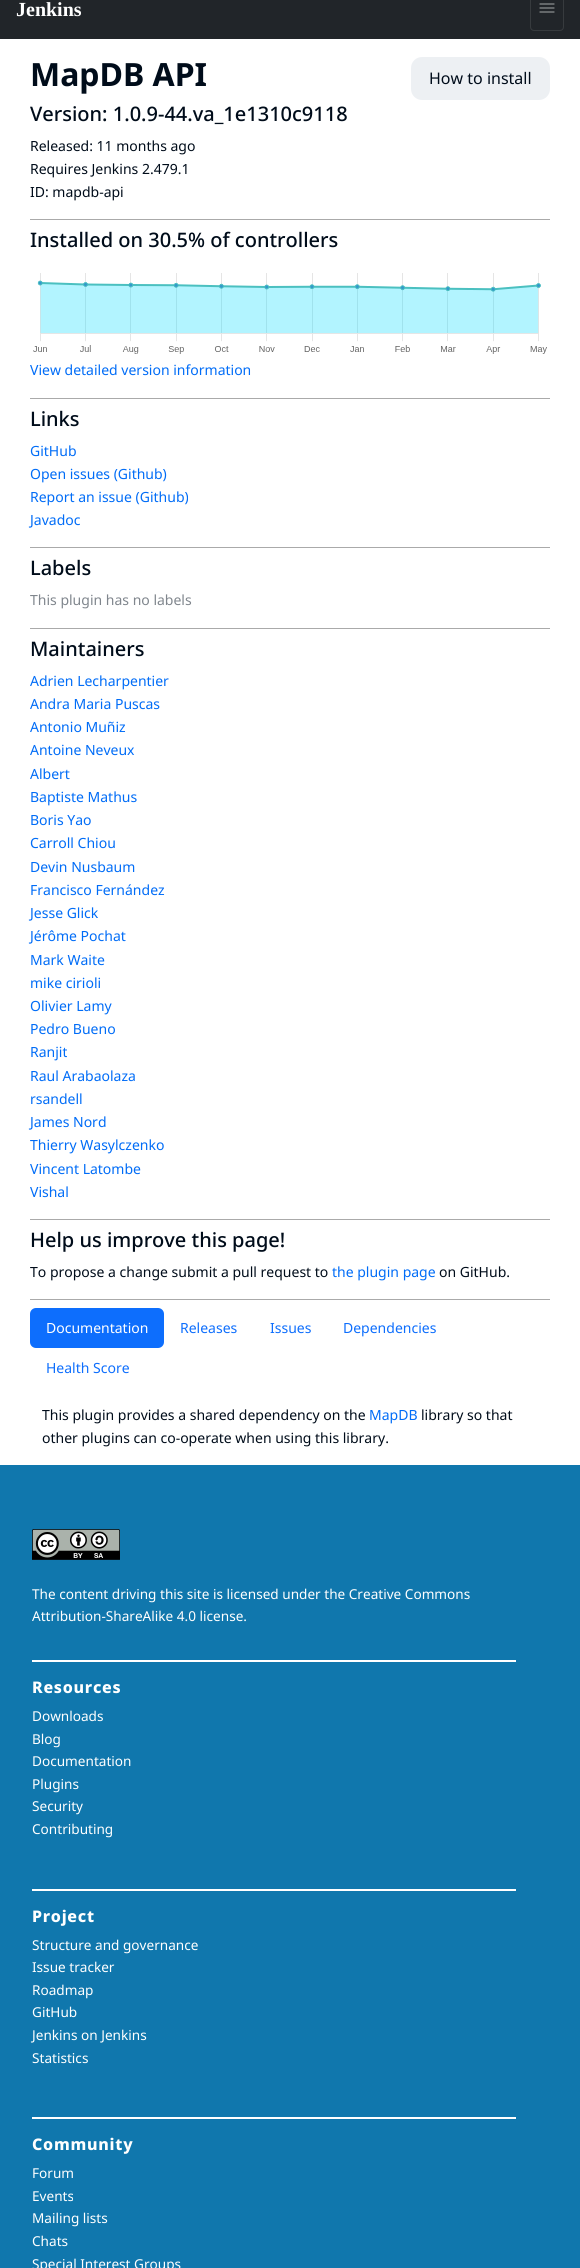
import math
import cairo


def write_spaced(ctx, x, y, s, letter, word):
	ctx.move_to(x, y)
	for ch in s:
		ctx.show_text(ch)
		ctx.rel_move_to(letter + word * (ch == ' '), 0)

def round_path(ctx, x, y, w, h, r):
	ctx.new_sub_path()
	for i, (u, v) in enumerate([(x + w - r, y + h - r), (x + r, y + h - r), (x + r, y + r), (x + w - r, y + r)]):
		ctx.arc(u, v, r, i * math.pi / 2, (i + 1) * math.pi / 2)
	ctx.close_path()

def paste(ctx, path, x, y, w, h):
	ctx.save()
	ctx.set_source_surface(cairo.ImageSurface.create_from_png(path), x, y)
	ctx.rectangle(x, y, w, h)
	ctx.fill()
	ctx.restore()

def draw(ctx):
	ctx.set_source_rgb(1, 1, 1)
	ctx.paint()
	ctx.set_source_rgb(0.129, 0.145, 0.161)
	ctx.rectangle(0, 0, 580, 39)
	ctx.fill()
	ctx.select_font_face('Liberation Serif', cairo.FONT_SLANT_NORMAL, cairo.FONT_WEIGHT_BOLD)
	ctx.set_font_size(20)
	ctx.set_source_rgb(1, 1, 1)
	ctx.move_to(16, 16)
	ctx.show_text('Jenkins')
	round_path(ctx, 530.5, -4.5, 33, 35, 3.5)
	ctx.set_source_rgb(0.216, 0.231, 0.243)
	ctx.set_line_width(1)
	ctx.stroke()
	ctx.new_path()
	ctx.move_to(540, 4)
	ctx.line_to(554, 4)
	ctx.move_to(540, 8)
	ctx.line_to(554, 8)
	ctx.move_to(540, 12)
	ctx.line_to(554, 12)
	ctx.set_source_rgb(0.565, 0.573, 0.58)
	ctx.set_line_width(1.2)
	ctx.set_line_cap(cairo.LINE_CAP_ROUND)
	ctx.stroke()
	ctx.select_font_face('Noto Sans', cairo.FONT_SLANT_NORMAL, cairo.FONT_WEIGHT_BOLD)
	ctx.set_font_size(32)
	ctx.set_source_rgb(0, 0.047, 0.102)
	ctx.move_to(30, 86)
	ctx.show_text('MapDB API')
	ctx.set_source_rgb(0.929, 0.941, 0.953)
	round_path(ctx, 411, 57, 139, 43, 11)
	ctx.fill()
	ctx.select_font_face('Noto Sans')
	ctx.set_font_size(16)
	ctx.set_source_rgb(0, 0.047, 0.102)
	ctx.move_to(429, 84)
	ctx.show_text('How to install')
	ctx.select_font_face('Noto Sans Medium')
	ctx.set_font_size(20)
	ctx.move_to(30, 121)
	ctx.show_text('Version: 1.0.9-44.va_1e1310c9118')
	ctx.select_font_face('Noto Sans')
	ctx.set_font_size(14)
	for x, y, s in [
		(30, 151, 'Released: 11 months ago'),
		(30, 174, 'Requires Jenkins 2.479.1'),
		(30, 197, 'ID: mapdb-api'),
	]:
		ctx.move_to(x, y)
		ctx.show_text(s)
	ctx.set_source_rgb(0.667, 0.667, 0.667)
	ctx.rectangle(30, 219, 520, 1)
	ctx.fill()
	ctx.select_font_face('Noto Sans Medium')
	ctx.set_font_size(20)
	ctx.set_source_rgb(0, 0.047, 0.102)
	ctx.move_to(30, 247)
	ctx.show_text('Installed on 30.5% of controllers')
	paste(ctx, 'media/1.png', 33, 273, 514, 81)
	ctx.select_font_face('Noto Sans')
	ctx.set_font_size(14)
	ctx.set_source_rgb(0, 0.424, 0.965)
	ctx.move_to(30, 375)
	ctx.show_text('View detailed version information')
	ctx.set_source_rgb(0.667, 0.667, 0.667)
	ctx.rectangle(30, 398, 520, 1)
	ctx.fill()
	ctx.select_font_face('Noto Sans Medium')
	ctx.set_font_size(20)
	ctx.set_source_rgb(0, 0.047, 0.102)
	ctx.move_to(30, 426)
	ctx.show_text('Links')
	ctx.select_font_face('Noto Sans')
	ctx.set_font_size(14)
	ctx.set_source_rgb(0, 0.424, 0.965)
	for x, y, s in [
		(30, 456, 'GitHub'),
		(30, 479, 'Open issues (Github)'),
		(30, 502, 'Report an issue (Github)'),
		(30, 525, 'Javadoc'),
	]:
		ctx.move_to(x, y)
		ctx.show_text(s)
	ctx.set_source_rgb(0.667, 0.667, 0.667)
	ctx.rectangle(30, 547, 520, 1)
	ctx.fill()
	ctx.select_font_face('Noto Sans Medium')
	ctx.set_font_size(20)
	ctx.set_source_rgb(0, 0.047, 0.102)
	ctx.move_to(30, 575)
	ctx.show_text('Labels')
	ctx.select_font_face('Noto Sans')
	ctx.set_font_size(14)
	ctx.set_source_rgb(0.502, 0.525, 0.553)
	ctx.move_to(30, 605)
	ctx.show_text('This plugin has no labels')
	ctx.set_source_rgb(0.667, 0.667, 0.667)
	ctx.rectangle(30, 628, 520, 1)
	ctx.fill()
	ctx.select_font_face('Noto Sans Medium')
	ctx.set_font_size(20)
	ctx.set_source_rgb(0, 0.047, 0.102)
	ctx.move_to(30, 656)
	ctx.show_text('Maintainers')
	ctx.select_font_face('Noto Sans')
	ctx.set_font_size(14)
	ctx.set_source_rgb(0, 0.424, 0.965)
	for x, y, s in [
		(30, 686, 'Adrien Lecharpentier'),
		(30, 709, 'Andra Maria Puscas'),
		(30, 732, 'Antonio Muñiz'),
		(30, 755, 'Antoine Neveux'),
		(30, 779, 'Albert'),
		(30, 802, 'Baptiste Mathus'),
		(30, 825, 'Boris Yao'),
		(30, 848, 'Carroll Chiou'),
		(30, 872, 'Devin Nusbaum'),
		(30, 895, 'Francisco Fernández'),
		(30, 918, 'Jesse Glick'),
		(30, 941, 'Jérôme Pochat'),
		(30, 965, 'Mark Waite'),
		(30, 988, 'mike cirioli'),
		(30, 1011, 'Olivier Lamy'),
		(30, 1034, 'Pedro Bueno'),
		(30, 1057, 'Ranjit'),
		(30, 1081, 'Raul Arabaolaza'),
		(30, 1104, 'rsandell'),
		(30, 1127, 'James Nord'),
		(30, 1150, 'Thierry Wasylczenko'),
		(30, 1174, 'Vincent Latombe'),
		(30, 1197, 'Vishal'),
	]:
		ctx.move_to(x, y)
		ctx.show_text(s)
	ctx.set_source_rgb(0.667, 0.667, 0.667)
	ctx.rectangle(30, 1219, 520, 1)
	ctx.fill()
	ctx.select_font_face('Noto Sans Medium')
	ctx.set_font_size(20)
	ctx.set_source_rgb(0, 0.047, 0.102)
	ctx.move_to(30, 1247)
	ctx.show_text('Help us improve this page!')
	ctx.select_font_face('Noto Sans')
	ctx.set_font_size(14)
	ctx.move_to(30, 1277)
	ctx.show_text('To propose a change submit a pull request to')
	ctx.set_source_rgb(0, 0.424, 0.965)
	ctx.move_to(332, 1277)
	ctx.show_text('the plugin page')
	ctx.set_source_rgb(0, 0.047, 0.102)
	ctx.move_to(439, 1277)
	ctx.show_text('on GitHub.')
	ctx.set_source_rgb(0.667, 0.667, 0.667)
	ctx.rectangle(30, 1299, 520, 1)
	ctx.fill()
	ctx.set_source_rgb(0.051, 0.431, 0.992)
	round_path(ctx, 30, 1308, 134, 40, 6)
	ctx.fill()
	ctx.set_source_rgb(1, 1, 1)
	ctx.move_to(46, 1333)
	ctx.show_text('Documentation')
	ctx.set_source_rgb(0.051, 0.431, 0.992)
	for x, y, s in [
		(180, 1333, 'Releases'),
		(270, 1333, 'Issues'),
		(343, 1333, 'Dependencies'),
		(46, 1373, 'Health Score'),
	]:
		ctx.move_to(x, y)
		ctx.show_text(s)
	ctx.set_source_rgb(0, 0.047, 0.102)
	ctx.move_to(42, 1420)
	ctx.show_text('This plugin provides a shared dependency on the')
	ctx.set_source_rgb(0, 0.424, 0.965)
	ctx.move_to(369, 1420)
	ctx.show_text('MapDB')
	ctx.set_source_rgb(0, 0.047, 0.102)
	ctx.move_to(421, 1420)
	ctx.show_text('library so that')
	ctx.move_to(42, 1443)
	ctx.show_text('other plugins can co-operate when using this library.')
	ctx.set_source_rgb(0.063, 0.467, 0.678)
	ctx.rectangle(0, 1465, 580, 803)
	ctx.fill()
	paste(ctx, 'media/2.png', 32, 1529, 88, 31)
	ctx.set_font_size(13.6)
	ctx.set_source_rgb(1, 1, 1)
	ctx.move_to(32, 1599)
	ctx.show_text('The content driving this site is licensed under the Creative Commons')
	ctx.move_to(32, 1621)
	ctx.show_text('Attribution-ShareAlike 4.0 license.')
	ctx.rectangle(32, 1660, 484, 2)
	ctx.fill()
	ctx.select_font_face('Noto Sans ExtraBold')
	ctx.set_font_size(16)
	write_spaced(ctx, 32, 1693, 'Resources', 0.75, 0)
	ctx.select_font_face('Noto Sans')
	ctx.set_font_size(13.6)
	for x, y, s in [
		(32, 1721, 'Downloads'),
		(32, 1744, 'Blog'),
		(32, 1766, 'Documentation'),
		(32, 1789, 'Plugins'),
		(32, 1811, 'Security'),
		(32, 1834, 'Contributing'),
	]:
		ctx.move_to(x, y)
		ctx.show_text(s)
	ctx.rectangle(32, 1889, 484, 2)
	ctx.fill()
	ctx.select_font_face('Noto Sans ExtraBold')
	ctx.set_font_size(16)
	write_spaced(ctx, 32, 1922, 'Project', 0.75, 0)
	ctx.select_font_face('Noto Sans')
	ctx.set_font_size(13.6)
	for x, y, s in [
		(32, 1950, 'Structure and governance'),
		(32, 1972, 'Issue tracker'),
		(32, 1995, 'Roadmap'),
		(32, 2017, 'GitHub'),
		(32, 2040, 'Jenkins on Jenkins'),
		(32, 2063, 'Statistics'),
	]:
		ctx.move_to(x, y)
		ctx.show_text(s)
	ctx.rectangle(32, 2117, 484, 2)
	ctx.fill()
	ctx.select_font_face('Noto Sans ExtraBold')
	ctx.set_font_size(16)
	write_spaced(ctx, 32, 2150, 'Community', 0.75, 0)
	ctx.select_font_face('Noto Sans')
	ctx.set_font_size(13.6)
	for x, y, s in [
		(32, 2178, 'Forum'),
		(32, 2201, 'Events'),
		(32, 2223, 'Mailing lists'),
		(32, 2246, 'Chats'),
		(32, 2269, 'Special Interest Groups'),
	]:
		ctx.move_to(x, y)
		ctx.show_text(s)


surface = cairo.ImageSurface(cairo.FORMAT_RGB24, 580, 2268)
ctx = cairo.Context(surface)
options = cairo.FontOptions()
options.set_hint_metrics(cairo.HINT_METRICS_OFF)
options.set_hint_style(cairo.HINT_STYLE_NONE)
ctx.set_font_options(options)
ctx.set_miter_limit(4)
draw(ctx)
surface.write_to_png('image.png')
